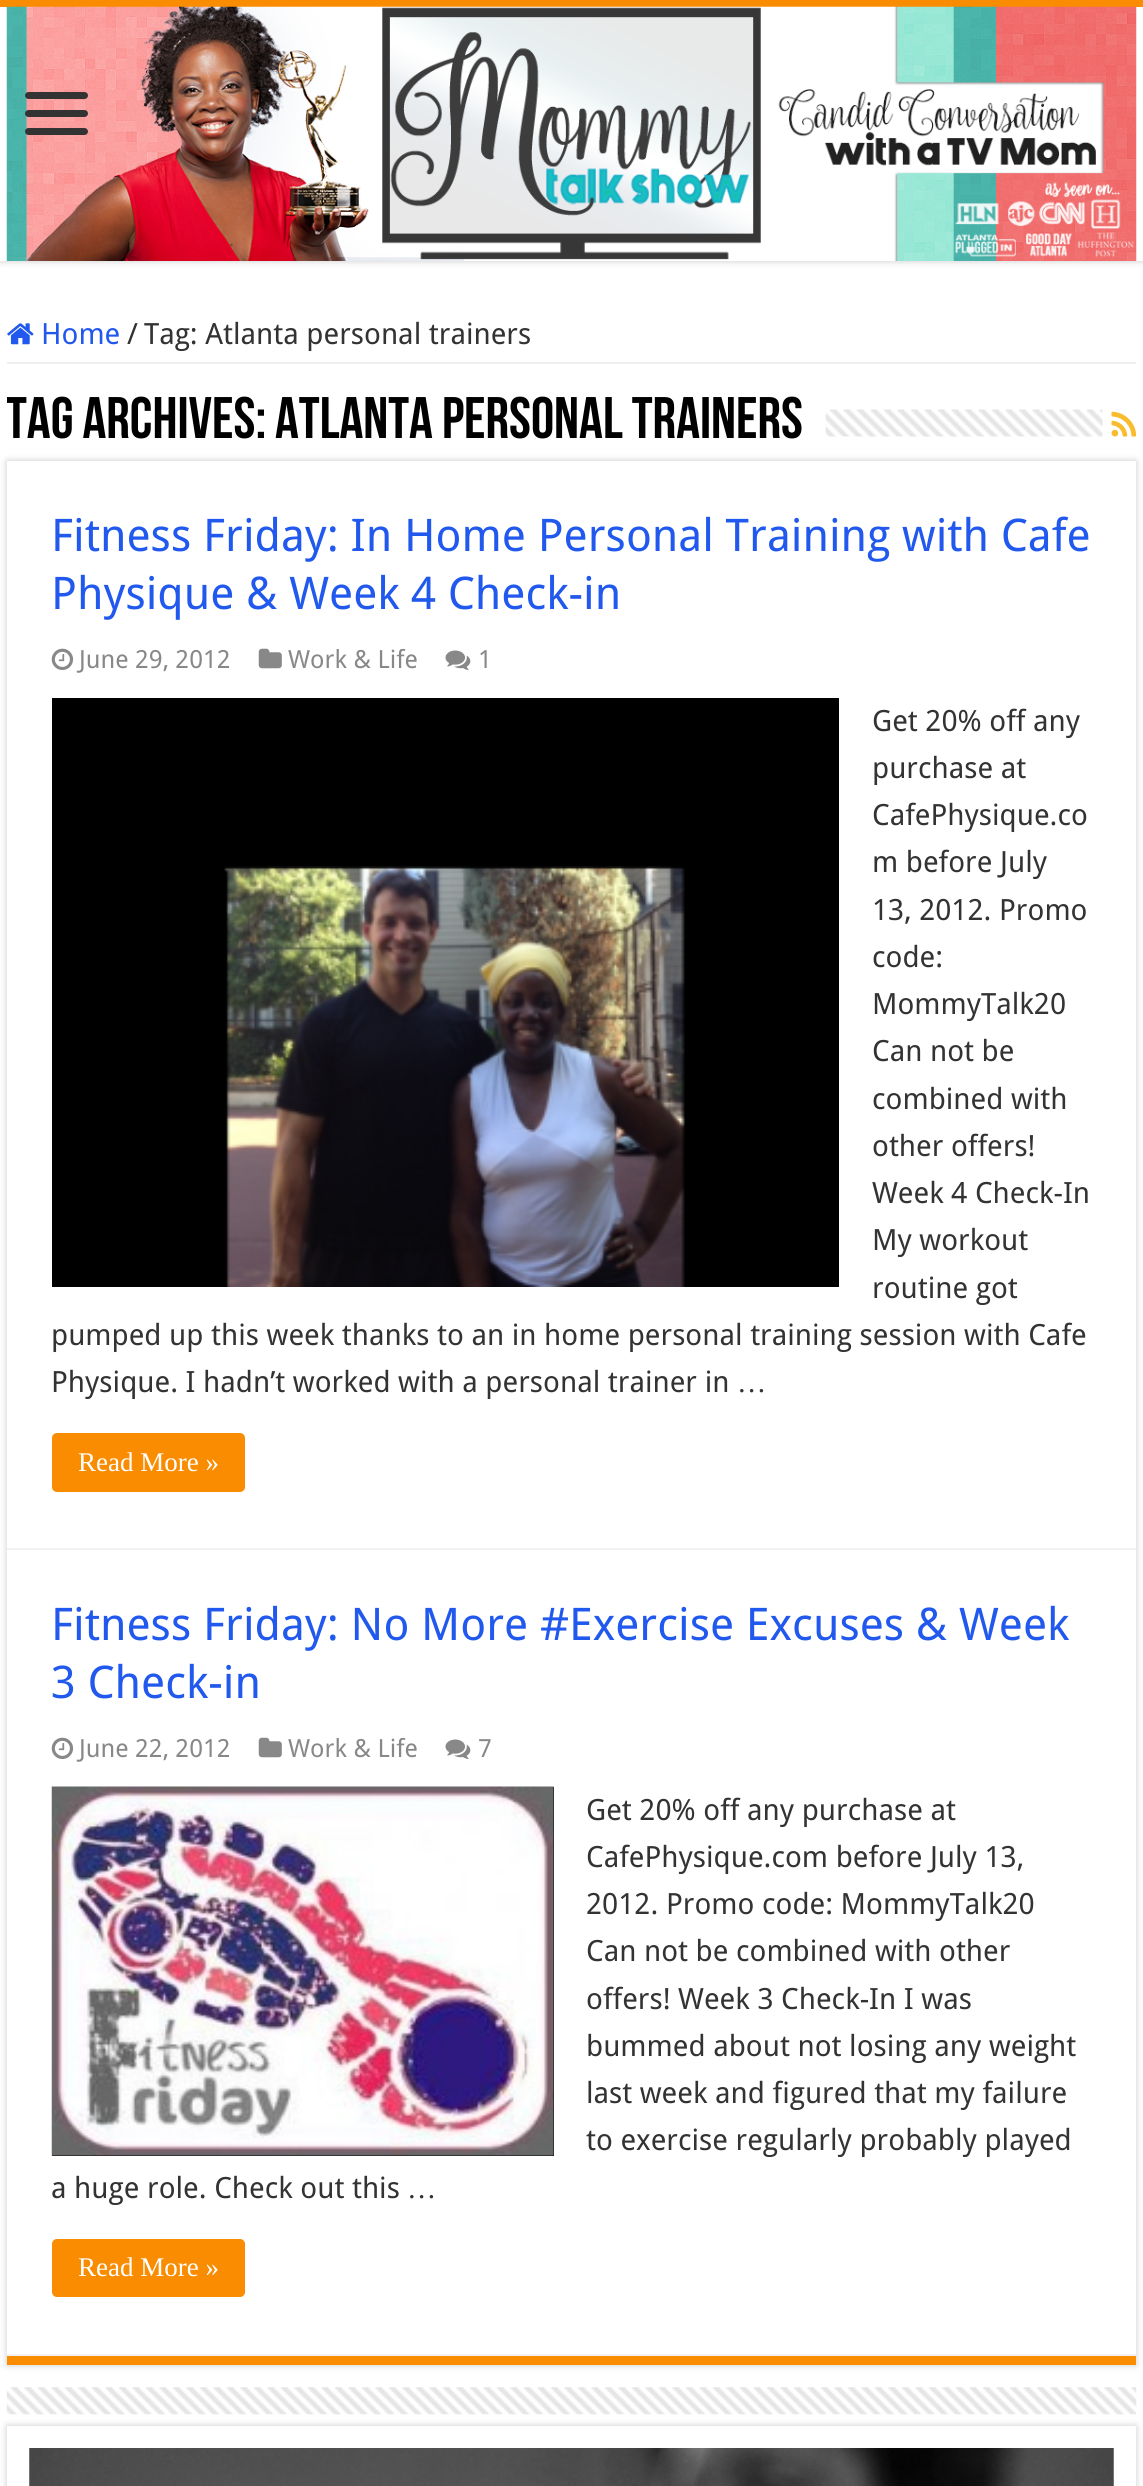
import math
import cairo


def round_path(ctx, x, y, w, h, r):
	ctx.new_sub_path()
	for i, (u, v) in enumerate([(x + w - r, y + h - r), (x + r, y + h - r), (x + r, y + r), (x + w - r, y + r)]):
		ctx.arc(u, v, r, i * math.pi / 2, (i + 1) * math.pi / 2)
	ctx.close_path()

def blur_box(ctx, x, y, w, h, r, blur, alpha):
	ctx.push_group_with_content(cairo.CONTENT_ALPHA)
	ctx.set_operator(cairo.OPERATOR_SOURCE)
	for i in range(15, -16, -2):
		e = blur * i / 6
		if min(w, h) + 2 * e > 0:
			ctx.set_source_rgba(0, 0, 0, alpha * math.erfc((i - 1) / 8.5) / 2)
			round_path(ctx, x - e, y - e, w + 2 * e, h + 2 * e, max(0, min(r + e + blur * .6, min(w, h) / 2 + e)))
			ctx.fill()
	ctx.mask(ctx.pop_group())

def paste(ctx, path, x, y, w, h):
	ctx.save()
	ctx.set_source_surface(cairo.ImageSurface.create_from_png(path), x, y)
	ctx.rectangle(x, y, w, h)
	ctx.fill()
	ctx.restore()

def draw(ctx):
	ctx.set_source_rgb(1, 1, 1)
	ctx.paint()
	ctx.save()
	ctx.rectangle(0, 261, 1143, 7)
	ctx.clip()
	ctx.set_source_rgb(0.792, 0.792, 0.792)
	blur_box(ctx, 0, 0, 1143, 261, 0, 3.5, 1)
	ctx.restore()
	ctx.set_source_rgb(0.973, 0.549, 0)
	ctx.rectangle(0, 0, 1143, 7)
	ctx.fill()
	paste(ctx, 'media/1.png', 6, 6, 1131, 255)
	ctx.set_source_rgb(0.2, 0.2, 0.2)
	round_path(ctx, 25, 92, 63, 7, 3.5)
	ctx.fill()
	round_path(ctx, 25, 110, 63, 7, 3.5)
	ctx.fill()
	round_path(ctx, 25, 128, 63, 7, 3.5)
	ctx.fill()
	ctx.set_source_rgb(0.933, 0.933, 0.933)
	ctx.rectangle(7, 362, 1129, 2)
	ctx.fill()
	paste(ctx, 'media/2.png', 7, 323, 27, 22)
	ctx.select_font_face('Droid Sans')
	ctx.set_font_size(29.25)
	ctx.set_source_rgb(0.129, 0.345, 0.929)
	ctx.move_to(41, 344)
	ctx.show_text('Home')
	ctx.set_source_rgb(0.2, 0.2, 0.2)
	ctx.move_to(127, 344)
	ctx.show_text('/')
	ctx.move_to(144, 344)
	ctx.show_text('Tag: Atlanta personal trainers')
	ctx.save()
	ctx.rectangle(7, 387, 1129, 74)
	ctx.clip()
	ctx.select_font_face('Bebas Neue', cairo.FONT_SLANT_NORMAL, cairo.FONT_WEIGHT_BOLD)
	ctx.set_font_size(58.5)
	ctx.set_source_rgb(0, 0, 0)
	ctx.move_to(6, 438)
	ctx.show_text('Tag Archives:')
	ctx.restore()
	ctx.select_font_face('Bebas Neue', cairo.FONT_SLANT_NORMAL, cairo.FONT_WEIGHT_BOLD)
	ctx.set_font_size(58.5)
	ctx.set_source_rgb(0, 0, 0)
	ctx.move_to(275, 438)
	ctx.show_text('Atlanta personal trainers')
	paste(ctx, 'media/3.png', 825, 409, 278, 28)
	paste(ctx, 'media/4.png', 1111, 411, 25, 26)
	ctx.set_source_rgb(0.792, 0.792, 0.792)
	blur_box(ctx, 7, 461, 1129, 1904, 0, 3.5, 1)
	ctx.set_source_rgb(1, 1, 1)
	ctx.rectangle(7, 461, 1129, 1893)
	ctx.fill()
	ctx.set_source_rgb(0.973, 0.549, 0)
	ctx.rectangle(7, 2356, 1129, 9)
	ctx.fill()
	ctx.set_source_rgb(0.949, 0.949, 0.949)
	ctx.rectangle(7, 1548, 1129, 2)
	ctx.fill()
	ctx.select_font_face('Droid Sans')
	ctx.set_font_size(45)
	ctx.set_source_rgb(0.129, 0.345, 0.929)
	ctx.move_to(51, 551)
	ctx.show_text('Fitness Friday: In Home Personal Training with Cafe')
	ctx.move_to(51, 609)
	ctx.show_text('Physique & Week 4 Check-in')
	paste(ctx, 'media/5.png', 51, 648, 23, 22)
	ctx.set_font_size(25)
	ctx.set_source_rgb(0.533, 0.533, 0.533)
	ctx.move_to(79, 668)
	ctx.show_text('June 29, 2012')
	paste(ctx, 'media/6.png', 258, 648, 24, 21)
	ctx.move_to(288, 668)
	ctx.show_text('Work & Life')
	paste(ctx, 'media/7.png', 445, 650, 26, 20)
	ctx.move_to(478, 668)
	ctx.show_text('1')
	ctx.set_source_rgb(0, 0, 0)
	ctx.rectangle(52, 698, 787, 589)
	ctx.fill()
	paste(ctx, 'media/8.png', 224, 866, 461, 421)
	ctx.set_font_size(29.25)
	ctx.set_source_rgb(0.2, 0.2, 0.2)
	for x, y, s in [
		(872, 731, 'Get 20% off any'),
		(872, 778, 'purchase at'),
		(872, 825, 'CafePhysique.co'),
		(872, 872, 'm before July'),
		(872, 920, '13, 2012. Promo'),
		(872, 967, 'code:'),
		(872, 1014, 'MommyTalk20'),
		(872, 1061, 'Can not be'),
		(872, 1109, 'combined with'),
		(872, 1156, 'other offers!'),
		(872, 1203, 'Week 4 Check-In'),
		(872, 1250, 'My workout'),
		(872, 1298, 'routine got'),
		(51, 1345, 'pumped up this week thanks to an in home personal training session with Cafe'),
		(51, 1392, 'Physique. I hadn’t worked with a personal trainer in'),
	]:
		ctx.move_to(x, y)
		ctx.show_text(s)
	ctx.select_font_face('Liberation Serif')
	ctx.move_to(737, 1392)
	ctx.show_text('…')
	ctx.set_source_rgb(0.973, 0.549, 0)
	round_path(ctx, 52, 1433, 193, 59, 5)
	ctx.fill()
	ctx.set_font_size(27)
	ctx.set_source_rgb(1, 1, 1)
	ctx.move_to(78, 1471)
	ctx.show_text('Read More »')
	ctx.set_source_rgb(0.949, 0.949, 0.949)
	ctx.rectangle(7, 2354, 1129, 2)
	ctx.fill()
	ctx.select_font_face('Droid Sans')
	ctx.set_font_size(45)
	ctx.set_source_rgb(0.129, 0.345, 0.929)
	ctx.move_to(51, 1640)
	ctx.show_text('Fitness Friday: No More #Exercise Excuses & Week')
	ctx.move_to(51, 1698)
	ctx.show_text('3 Check-in')
	paste(ctx, 'media/5.png', 51, 1737, 23, 22)
	ctx.set_font_size(25)
	ctx.set_source_rgb(0.533, 0.533, 0.533)
	ctx.move_to(79, 1757)
	ctx.show_text('June 22, 2012')
	paste(ctx, 'media/6.png', 258, 1737, 24, 21)
	ctx.move_to(288, 1757)
	ctx.show_text('Work & Life')
	paste(ctx, 'media/7.png', 445, 1739, 26, 20)
	ctx.move_to(478, 1757)
	ctx.show_text('7')
	ctx.set_source_rgb(0, 0, 0)
	ctx.rectangle(52, 1787, 502, 369)
	ctx.fill()
	paste(ctx, 'media/9.png', 51, 1786, 503, 370)
	ctx.set_font_size(29.25)
	ctx.set_source_rgb(0.2, 0.2, 0.2)
	for x, y, s in [
		(586, 1820, 'Get 20% off any purchase at'),
		(586, 1867, 'CafePhysique.com before July 13,'),
		(586, 1914, '2012. Promo code: MommyTalk20'),
		(586, 1961, 'Can not be combined with other'),
		(586, 2009, 'offers! Week 3 Check-In I was'),
		(586, 2056, 'bummed about not losing any weight'),
		(586, 2103, 'last week and figured that my failure'),
		(586, 2150, 'to exercise regularly probably played'),
		(51, 2198, 'a huge role. Check out this'),
	]:
		ctx.move_to(x, y)
		ctx.show_text(s)
	ctx.select_font_face('Liberation Serif')
	ctx.move_to(407, 2198)
	ctx.show_text('…')
	ctx.set_source_rgb(0.973, 0.549, 0)
	round_path(ctx, 52, 2239, 193, 58, 5)
	ctx.fill()
	ctx.set_font_size(27)
	ctx.set_source_rgb(1, 1, 1)
	ctx.move_to(78, 2276)
	ctx.show_text('Read More »')
	ctx.save()
	ctx.set_fill_rule(cairo.FILL_RULE_EVEN_ODD)
	ctx.new_path()
	ctx.move_to(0, 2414)
	ctx.line_to(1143, 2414)
	ctx.line_to(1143, 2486)
	ctx.line_to(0, 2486)
	ctx.close_path()
	ctx.move_to(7, 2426)
	ctx.line_to(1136, 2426)
	ctx.line_to(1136, 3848)
	ctx.line_to(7, 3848)
	ctx.close_path()
	ctx.clip()
	ctx.set_source_rgb(0.792, 0.792, 0.792)
	blur_box(ctx, 7, 2426, 1129, 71, 0, 3.5, 1)
	ctx.restore()
	paste(ctx, 'media/10.png', 6, 2387, 1131, 28)
	paste(ctx, 'media/11.png', 29, 2448, 1085, 38)


surface = cairo.ImageSurface(cairo.FORMAT_RGB24, 1143, 2486)
ctx = cairo.Context(surface)
options = cairo.FontOptions()
options.set_hint_metrics(cairo.HINT_METRICS_OFF)
options.set_hint_style(cairo.HINT_STYLE_NONE)
ctx.set_font_options(options)
ctx.set_miter_limit(4)
draw(ctx)
surface.write_to_png('image.png')
